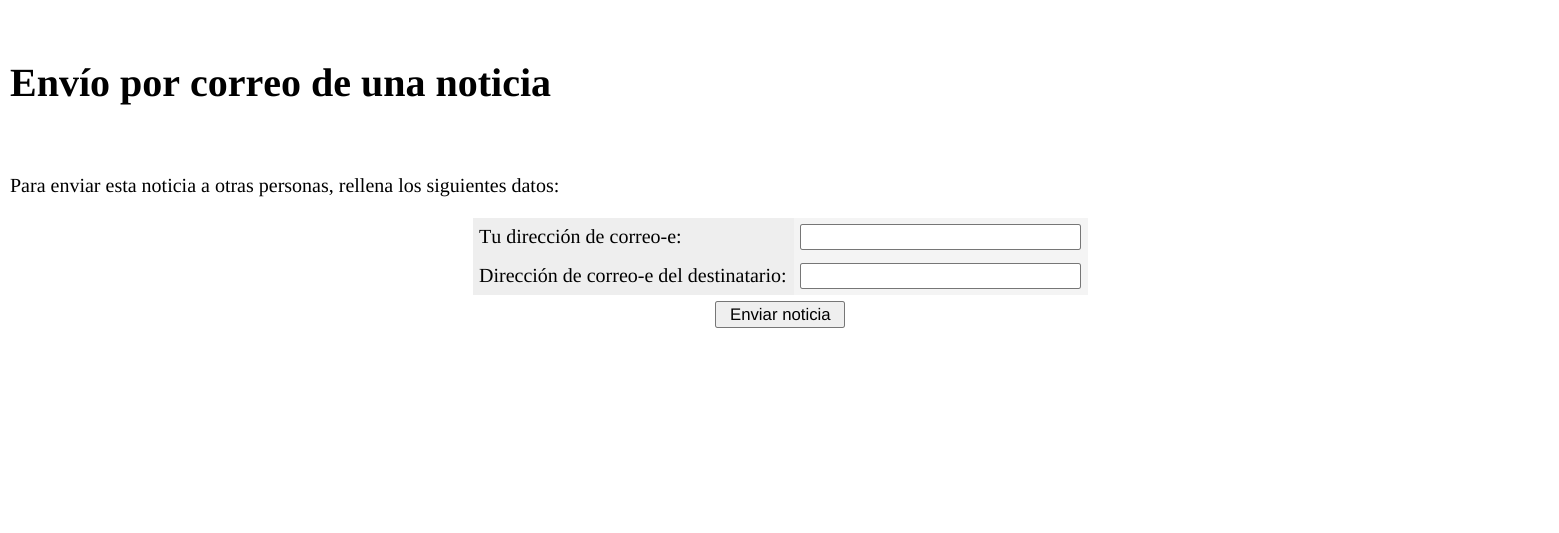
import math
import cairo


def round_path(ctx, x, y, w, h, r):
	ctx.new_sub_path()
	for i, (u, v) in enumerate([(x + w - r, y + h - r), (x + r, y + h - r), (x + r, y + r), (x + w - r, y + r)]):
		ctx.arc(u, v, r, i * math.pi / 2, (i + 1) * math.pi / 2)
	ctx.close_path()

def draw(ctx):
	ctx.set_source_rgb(1, 1, 1)
	ctx.paint()
	ctx.select_font_face('Liberation Serif', cairo.FONT_SLANT_NORMAL, cairo.FONT_WEIGHT_BOLD)
	ctx.set_font_size(40)
	ctx.set_source_rgb(0, 0, 0)
	ctx.move_to(10, 96)
	ctx.show_text('Envío por correo de una noticia')
	ctx.select_font_face('Liberation Serif')
	ctx.set_font_size(20)
	ctx.move_to(10, 192)
	ctx.show_text('Para enviar esta noticia a otras personas, rellena los siguientes datos:')
	ctx.set_source_rgb(0.957, 0.957, 0.957)
	ctx.rectangle(794, 218, 294, 77)
	ctx.fill()
	ctx.set_source_rgb(0.933, 0.933, 0.933)
	ctx.rectangle(473, 218, 321, 77)
	ctx.fill()
	ctx.set_source_rgb(0, 0, 0)
	ctx.move_to(479, 243)
	ctx.show_text('Tu dirección de correo-e:')
	ctx.set_source_rgb(1, 1, 1)
	round_path(ctx, 800.5, 224.5, 280, 25, 2)
	ctx.fill_preserve()
	ctx.set_source_rgb(0.463, 0.463, 0.463)
	ctx.set_line_width(1)
	ctx.stroke()
	ctx.set_source_rgb(0, 0, 0)
	ctx.move_to(479, 282)
	ctx.show_text('Dirección de correo-e del destinatario:')
	ctx.set_source_rgb(1, 1, 1)
	round_path(ctx, 800.5, 263.5, 280, 25, 2)
	ctx.fill_preserve()
	ctx.set_source_rgb(0.463, 0.463, 0.463)
	ctx.stroke()
	ctx.set_source_rgb(0.937, 0.937, 0.937)
	round_path(ctx, 715.5, 301.5, 129, 26, 2)
	ctx.fill_preserve()
	ctx.set_source_rgb(0.463, 0.463, 0.463)
	ctx.stroke()
	ctx.select_font_face('Liberation Sans')
	ctx.set_font_size(16.75)
	ctx.set_source_rgb(0, 0, 0)
	ctx.move_to(730, 320)
	ctx.show_text('Enviar noticia')


surface = cairo.ImageSurface(cairo.FORMAT_RGB24, 1559, 533)
ctx = cairo.Context(surface)
options = cairo.FontOptions()
options.set_hint_metrics(cairo.HINT_METRICS_OFF)
options.set_hint_style(cairo.HINT_STYLE_NONE)
ctx.set_font_options(options)
ctx.set_miter_limit(4)
draw(ctx)
surface.write_to_png('image.png')
